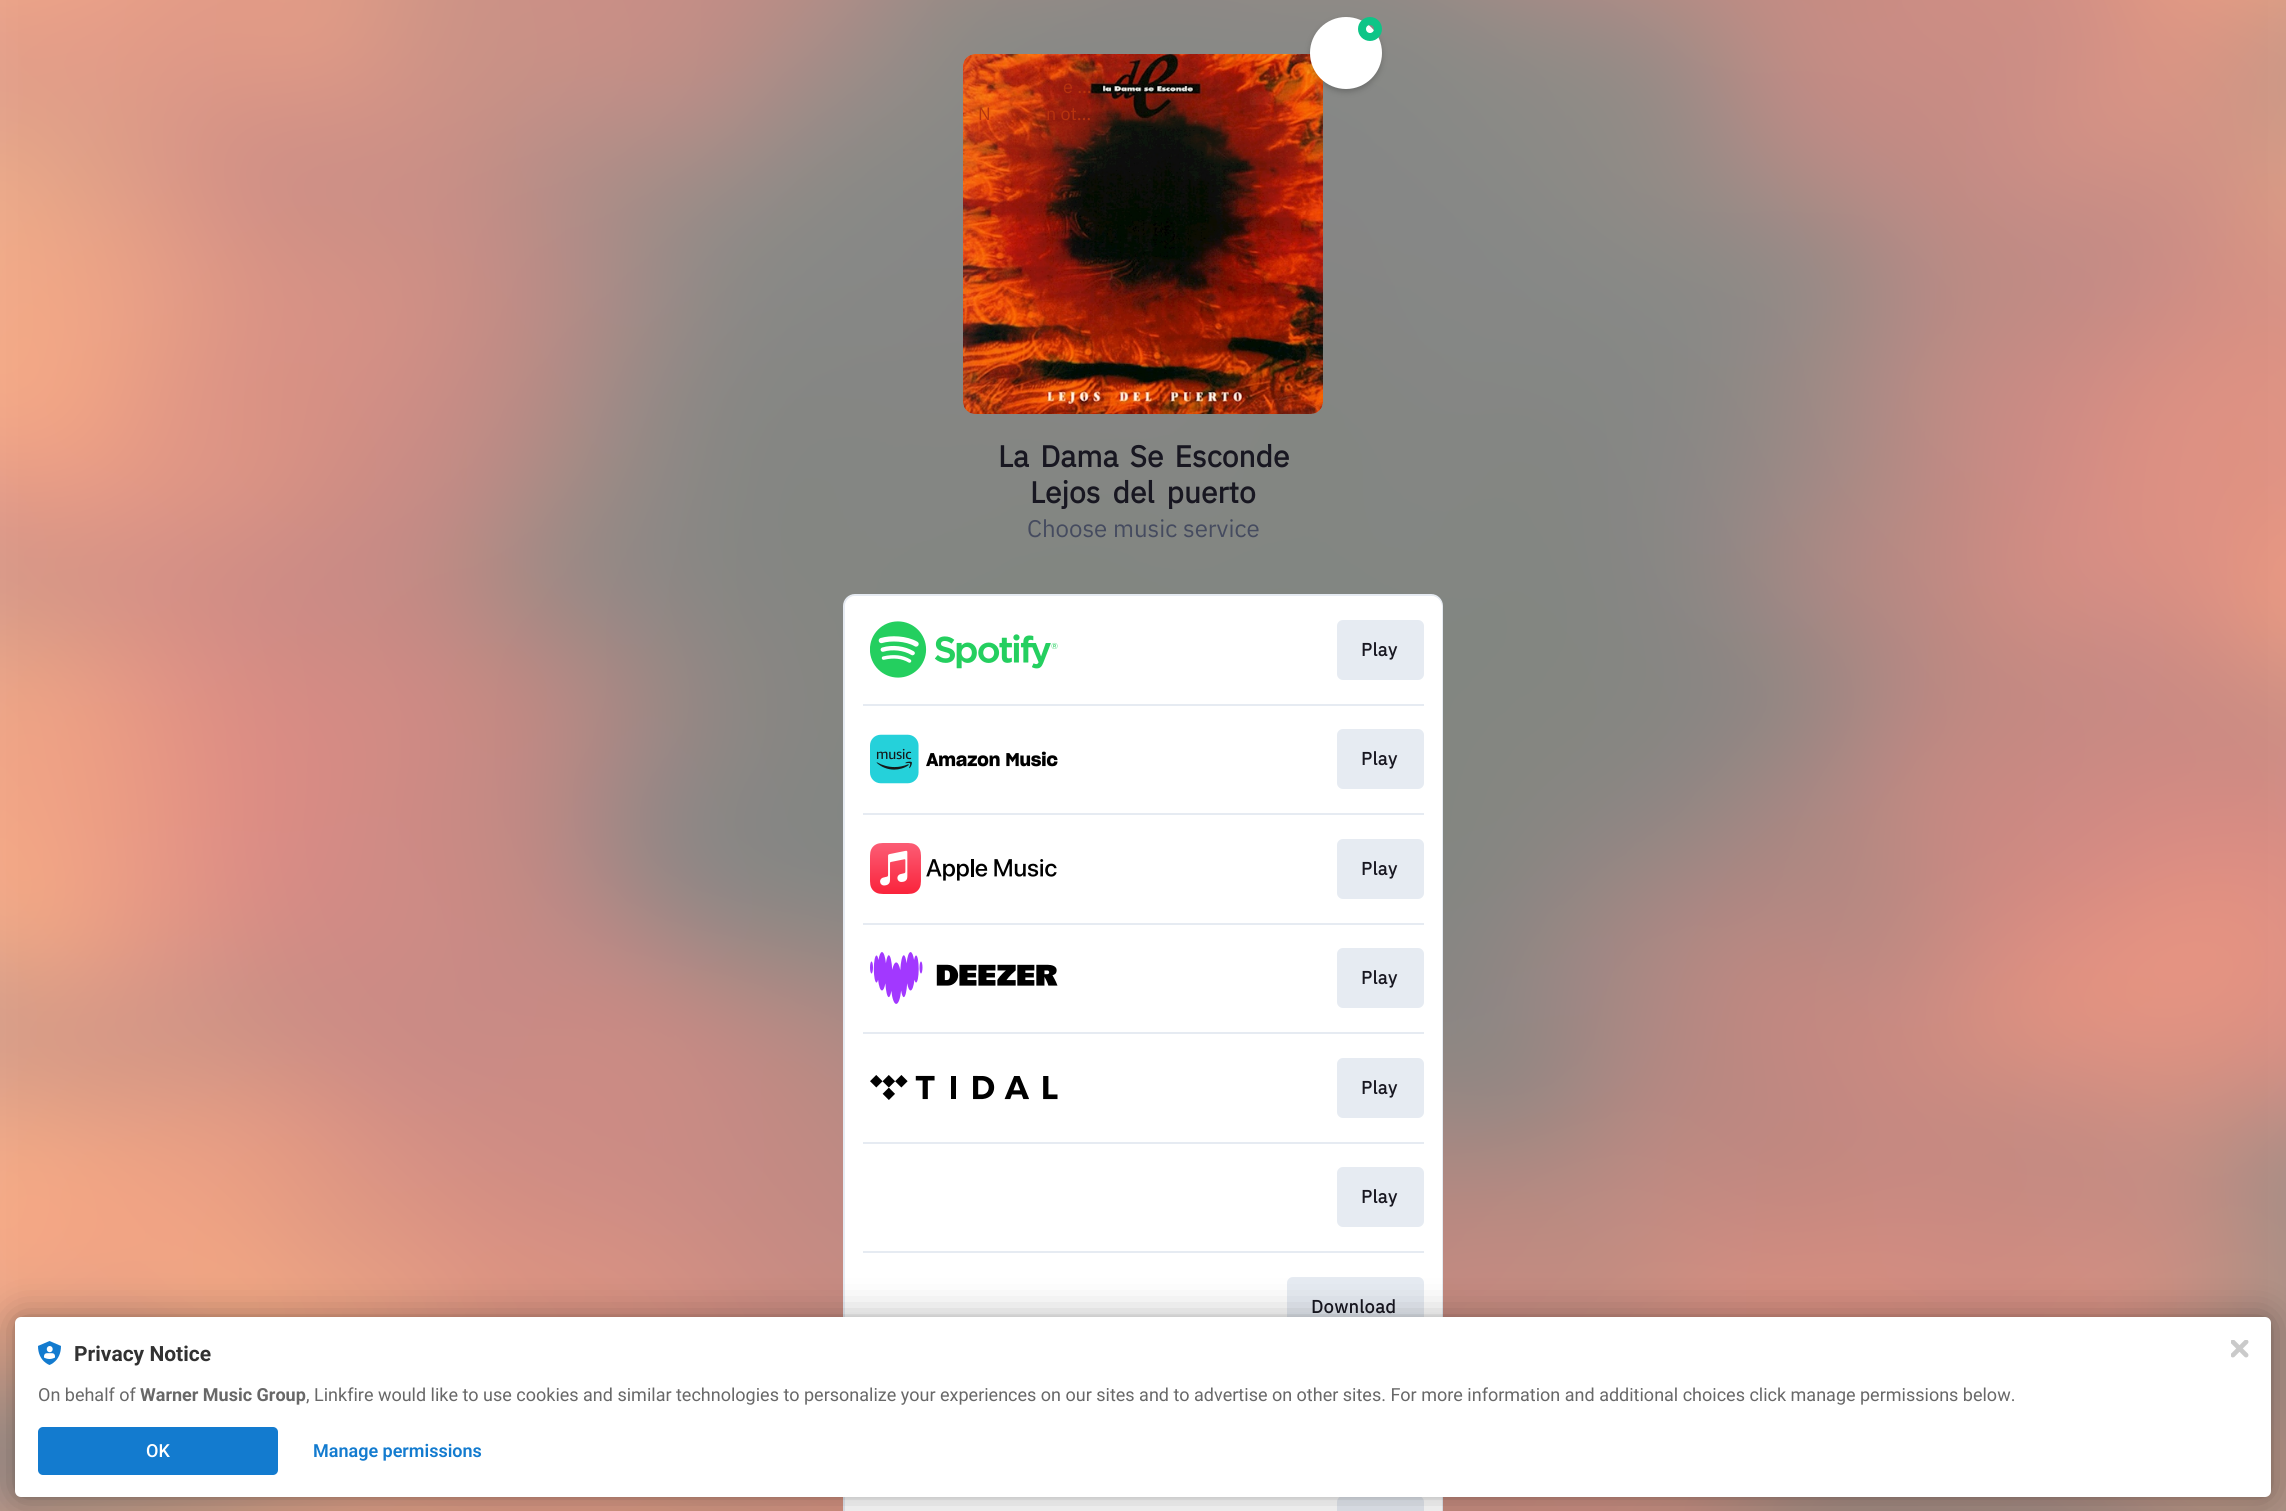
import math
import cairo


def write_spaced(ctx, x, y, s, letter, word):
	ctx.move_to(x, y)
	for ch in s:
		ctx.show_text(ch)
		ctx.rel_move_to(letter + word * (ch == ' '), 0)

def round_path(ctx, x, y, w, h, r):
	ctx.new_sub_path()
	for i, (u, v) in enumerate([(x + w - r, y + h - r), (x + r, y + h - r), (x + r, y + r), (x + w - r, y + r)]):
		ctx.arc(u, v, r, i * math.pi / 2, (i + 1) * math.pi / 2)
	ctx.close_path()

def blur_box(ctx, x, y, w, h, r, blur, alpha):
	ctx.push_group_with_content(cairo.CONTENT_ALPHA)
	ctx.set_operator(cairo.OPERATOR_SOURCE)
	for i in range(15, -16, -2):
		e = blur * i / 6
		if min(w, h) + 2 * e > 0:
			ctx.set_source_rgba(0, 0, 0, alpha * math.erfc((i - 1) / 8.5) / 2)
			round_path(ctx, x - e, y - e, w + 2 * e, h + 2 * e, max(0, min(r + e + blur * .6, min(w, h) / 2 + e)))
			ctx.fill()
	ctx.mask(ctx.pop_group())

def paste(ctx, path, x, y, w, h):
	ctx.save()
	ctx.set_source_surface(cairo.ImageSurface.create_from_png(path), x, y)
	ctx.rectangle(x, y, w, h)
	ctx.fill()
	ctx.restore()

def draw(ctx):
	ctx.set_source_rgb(1, 1, 1)
	ctx.paint()
	paste(ctx, 'media/1.png', 0, 0, 2286, 1511)
	paste(ctx, 'media/2.png', 963, 54, 360, 360)
	ctx.set_source_rgb(0, 0, 0)
	blur_box(ctx, 1310, 20, 72, 72, 36, 3, 0.2)
	ctx.set_source_rgb(1, 1, 1)
	ctx.arc(1346, 53, 36, 0, 2 * math.pi)
	ctx.fill()
	ctx.arc(1370, 29, 8, 0, 2 * math.pi)
	ctx.set_source_rgb(0.051, 0.773, 0.529)
	ctx.set_line_width(8)
	ctx.stroke()
	ctx.select_font_face('IBM Plex Sans')
	ctx.set_font_size(18)
	ctx.set_source_rgb(0.718, 0.2, 0.055)
	for x, y, s in [
		(1063, 93, 'e …'),
		(978, 120, 'N'),
		(1046, 120, 'n ot…'),
	]:
		ctx.move_to(x, y)
		ctx.show_text(s)
	ctx.select_font_face('IBM Plex Sans', cairo.FONT_SLANT_NORMAL, cairo.FONT_WEIGHT_BOLD)
	ctx.set_font_size(30)
	ctx.set_source_rgb(0.094, 0.09, 0.129)
	write_spaced(ctx, 998, 467, 'La Dama Se Esconde', 0, 4)
	write_spaced(ctx, 1030, 503, 'Lejos del puerto', 0, 5)
	ctx.select_font_face('IBM Plex Sans')
	ctx.set_font_size(24)
	ctx.set_source_rgb(0.271, 0.294, 0.373)
	ctx.move_to(1027, 537)
	ctx.show_text('Choose music service')
	ctx.set_source_rgb(1, 1, 1)
	round_path(ctx, 844, 595, 598, 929, 11)
	ctx.fill_preserve()
	ctx.set_source_rgb(0.902, 0.918, 0.949)
	ctx.set_line_width(2)
	ctx.stroke()
	ctx.set_source_rgb(1, 1, 1)
	round_path(ctx, 845, 596, 597, 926, 11)
	ctx.fill()
	paste(ctx, 'media/3.png', 870, 621, 188, 57)
	ctx.set_source_rgb(0.902, 0.918, 0.949)
	round_path(ctx, 1337, 620, 87, 60, 6)
	ctx.fill()
	ctx.select_font_face('IBM Plex Sans', cairo.FONT_SLANT_NORMAL, cairo.FONT_WEIGHT_BOLD)
	ctx.set_font_size(18)
	ctx.set_source_rgb(0.094, 0.09, 0.129)
	write_spaced(ctx, 1361, 656, 'Play', 0.5, 0)
	ctx.set_source_rgb(0.902, 0.918, 0.949)
	ctx.rectangle(863, 704, 561, 2)
	ctx.fill()
	paste(ctx, 'media/4.png', 870, 734, 188, 50)
	round_path(ctx, 1337, 729, 87, 60, 6)
	ctx.fill()
	ctx.set_source_rgb(0.094, 0.09, 0.129)
	write_spaced(ctx, 1361, 765, 'Play', 0.5, 0)
	ctx.set_source_rgb(0.902, 0.918, 0.949)
	ctx.rectangle(863, 813, 561, 2)
	ctx.fill()
	paste(ctx, 'media/5.png', 870, 843, 187, 51)
	round_path(ctx, 1337, 839, 87, 60, 6)
	ctx.fill()
	ctx.set_source_rgb(0.094, 0.09, 0.129)
	write_spaced(ctx, 1361, 875, 'Play', 0.5, 0)
	ctx.set_source_rgb(0.902, 0.918, 0.949)
	ctx.rectangle(863, 923, 561, 2)
	ctx.fill()
	paste(ctx, 'media/6.png', 870, 952, 188, 52)
	round_path(ctx, 1337, 948, 87, 60, 6)
	ctx.fill()
	ctx.set_source_rgb(0.094, 0.09, 0.129)
	write_spaced(ctx, 1361, 984, 'Play', 0.5, 0)
	ctx.set_source_rgb(0.902, 0.918, 0.949)
	ctx.rectangle(863, 1032, 561, 2)
	ctx.fill()
	paste(ctx, 'media/7.png', 870, 1075, 188, 25)
	round_path(ctx, 1337, 1058, 87, 60, 6)
	ctx.fill()
	ctx.set_source_rgb(0.094, 0.09, 0.129)
	write_spaced(ctx, 1361, 1094, 'Play', 0.5, 0)
	ctx.set_source_rgb(0.902, 0.918, 0.949)
	ctx.rectangle(863, 1142, 561, 2)
	ctx.fill()
	round_path(ctx, 1337, 1167, 87, 60, 6)
	ctx.fill()
	ctx.set_source_rgb(0.094, 0.09, 0.129)
	write_spaced(ctx, 1361, 1203, 'Play', 0.5, 0)
	ctx.set_source_rgb(0.902, 0.918, 0.949)
	ctx.rectangle(863, 1251, 561, 2)
	ctx.fill()
	round_path(ctx, 1287, 1277, 137, 60, 6)
	ctx.fill()
	ctx.set_source_rgb(0.094, 0.09, 0.129)
	write_spaced(ctx, 1311, 1313, 'Download', 0.5, 0)
	ctx.set_source_rgb(0.902, 0.918, 0.949)
	round_path(ctx, 1337, 1496, 87, 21, 6)
	ctx.fill()
	ctx.set_source_rgb(0, 0, 0)
	blur_box(ctx, 15, 1317, 2256, 180, 6, 3, 0.12)
	blur_box(ctx, 15, 1317, 2256, 180, 6, 18, 0.3)
	ctx.set_source_rgb(1, 1, 1)
	round_path(ctx, 15, 1317, 2256, 180, 6)
	ctx.fill()
	paste(ctx, 'media/8.png', 38, 1341, 23, 24)
	ctx.select_font_face('Roboto', cairo.FONT_SLANT_NORMAL, cairo.FONT_WEIGHT_BOLD)
	ctx.set_font_size(21)
	ctx.set_source_rgb(0.196, 0.196, 0.196)
	ctx.move_to(74, 1361)
	ctx.show_text('Privacy Notice')
	ctx.select_font_face('Roboto')
	ctx.set_font_size(18)
	ctx.set_source_rgb(0.408, 0.408, 0.408)
	ctx.move_to(38, 1401)
	ctx.show_text('On behalf of')
	ctx.select_font_face('Roboto', cairo.FONT_SLANT_NORMAL, cairo.FONT_WEIGHT_BOLD)
	ctx.move_to(140, 1401)
	ctx.show_text('Warner Music Group')
	ctx.select_font_face('Roboto')
	ctx.move_to(306, 1401)
	ctx.show_text(', Linkfire would like to use cookies and similar technologies to personalize your experiences on our sites and to advertise on other sites. For more information and additional choices click manage permissions below.')
	ctx.set_source_rgb(0.075, 0.482, 0.812)
	round_path(ctx, 38, 1427, 240, 48, 5)
	ctx.fill()
	ctx.select_font_face('Roboto Medium')
	ctx.set_source_rgb(1, 1, 1)
	ctx.move_to(146, 1457)
	ctx.show_text('OK')
	ctx.select_font_face('Roboto SemiBold')
	ctx.set_source_rgb(0.075, 0.482, 0.812)
	ctx.move_to(313, 1457)
	ctx.show_text('Manage permissions')
	paste(ctx, 'media/9.png', 2231, 1340, 18, 18)


surface = cairo.ImageSurface(cairo.FORMAT_RGB24, 2286, 1511)
ctx = cairo.Context(surface)
options = cairo.FontOptions()
options.set_hint_metrics(cairo.HINT_METRICS_OFF)
options.set_hint_style(cairo.HINT_STYLE_NONE)
ctx.set_font_options(options)
ctx.set_miter_limit(4)
draw(ctx)
surface.write_to_png('image.png')
